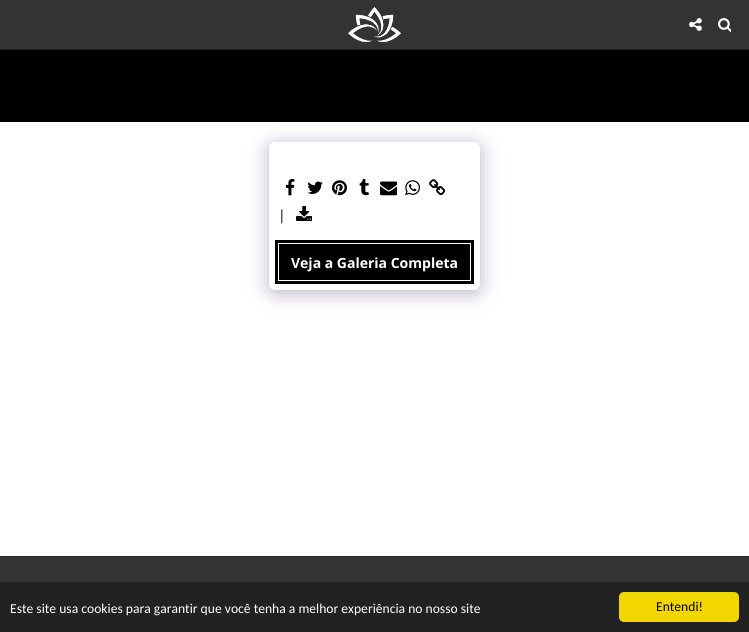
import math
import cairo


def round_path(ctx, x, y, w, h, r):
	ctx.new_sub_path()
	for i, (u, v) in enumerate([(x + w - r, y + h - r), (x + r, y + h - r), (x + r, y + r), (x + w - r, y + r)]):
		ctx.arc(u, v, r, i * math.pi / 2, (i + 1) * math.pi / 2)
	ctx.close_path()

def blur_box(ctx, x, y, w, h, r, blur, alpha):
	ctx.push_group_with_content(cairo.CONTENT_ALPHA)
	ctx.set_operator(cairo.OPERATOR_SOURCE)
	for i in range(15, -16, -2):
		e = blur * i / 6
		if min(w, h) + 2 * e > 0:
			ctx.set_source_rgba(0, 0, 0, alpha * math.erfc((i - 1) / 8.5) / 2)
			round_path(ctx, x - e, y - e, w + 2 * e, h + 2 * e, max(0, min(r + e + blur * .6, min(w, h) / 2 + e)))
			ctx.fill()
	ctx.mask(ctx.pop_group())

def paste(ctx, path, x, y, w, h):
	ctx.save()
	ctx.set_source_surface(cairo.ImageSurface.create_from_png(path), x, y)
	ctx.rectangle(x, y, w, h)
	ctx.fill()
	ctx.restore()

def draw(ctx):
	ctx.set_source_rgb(1, 1, 1)
	ctx.paint()
	ctx.set_source_rgb(0.2, 0.2, 0.2)
	ctx.rectangle(0, 0, 749, 49)
	ctx.fill()
	ctx.set_source_rgb(0.106, 0.149, 0.173)
	ctx.rectangle(0, 49, 749, 1)
	ctx.fill()
	paste(ctx, 'media/1.png', 348, 7, 53, 35)
	paste(ctx, 'media/2.png', 689, 18, 13, 13)
	paste(ctx, 'media/3.png', 718, 18, 13, 14)
	ctx.set_source_rgb(0, 0, 0)
	ctx.rectangle(0, 50, 749, 72)
	ctx.fill()
	ctx.set_source_rgb(0.302, 0.247, 0.478)
	blur_box(ctx, 269, 145, 211, 148, 6, 10, 0.4)
	ctx.set_source_rgb(1, 1, 1)
	round_path(ctx, 269, 142, 211, 148, 6)
	ctx.fill()
	paste(ctx, 'media/4.png', 285, 179, 10, 17)
	paste(ctx, 'media/5.png', 307, 181, 16, 13)
	paste(ctx, 'media/6.png', 332, 180, 15, 16)
	paste(ctx, 'media/7.png', 359, 179, 10, 17)
	paste(ctx, 'media/8.png', 380, 181, 17, 15)
	paste(ctx, 'media/9.png', 405, 180, 15, 16)
	paste(ctx, 'media/10.png', 429, 179, 16, 17)
	ctx.select_font_face('Open Sans')
	ctx.set_font_size(14)
	ctx.set_source_rgb(0, 0, 0)
	ctx.move_to(278, 220)
	ctx.show_text('|')
	paste(ctx, 'media/11.png', 296, 206, 16, 15)
	ctx.rectangle(275, 240, 199, 44)
	ctx.fill()
	ctx.rectangle(278.5, 243.5, 192, 37)
	ctx.set_source_rgb(1, 1, 1)
	ctx.set_line_width(1)
	ctx.stroke()
	ctx.select_font_face('Open Sans', cairo.FONT_SLANT_NORMAL, cairo.FONT_WEIGHT_BOLD)
	ctx.move_to(291, 268)
	ctx.show_text('Veja a Galeria Completa')
	ctx.set_source_rgb(0.106, 0.149, 0.173)
	ctx.rectangle(0, 556, 749, 1)
	ctx.fill()
	ctx.set_source_rgb(0.2, 0.2, 0.2)
	ctx.rectangle(0, 557, 749, 25)
	ctx.fill()
	ctx.set_source_rgb(0.133, 0.133, 0.133)
	ctx.rectangle(0, 582, 749, 50)
	ctx.fill()
	ctx.select_font_face('Carlito')
	ctx.set_font_size(13.6)
	ctx.set_source_rgb(1, 1, 1)
	ctx.move_to(10, 613)
	ctx.show_text('Este site usa cookies para garantir que você tenha a melhor experiência no nosso site')
	ctx.set_source_rgb(0.945, 0.839, 0)
	round_path(ctx, 619, 592, 120, 30, 5)
	ctx.fill()
	ctx.set_source_rgb(0, 0, 0)
	ctx.move_to(656, 611)
	ctx.show_text('Entendi!')


surface = cairo.ImageSurface(cairo.FORMAT_RGB24, 749, 632)
ctx = cairo.Context(surface)
options = cairo.FontOptions()
options.set_hint_metrics(cairo.HINT_METRICS_OFF)
options.set_hint_style(cairo.HINT_STYLE_NONE)
ctx.set_font_options(options)
ctx.set_miter_limit(4)
draw(ctx)
surface.write_to_png('image.png')
